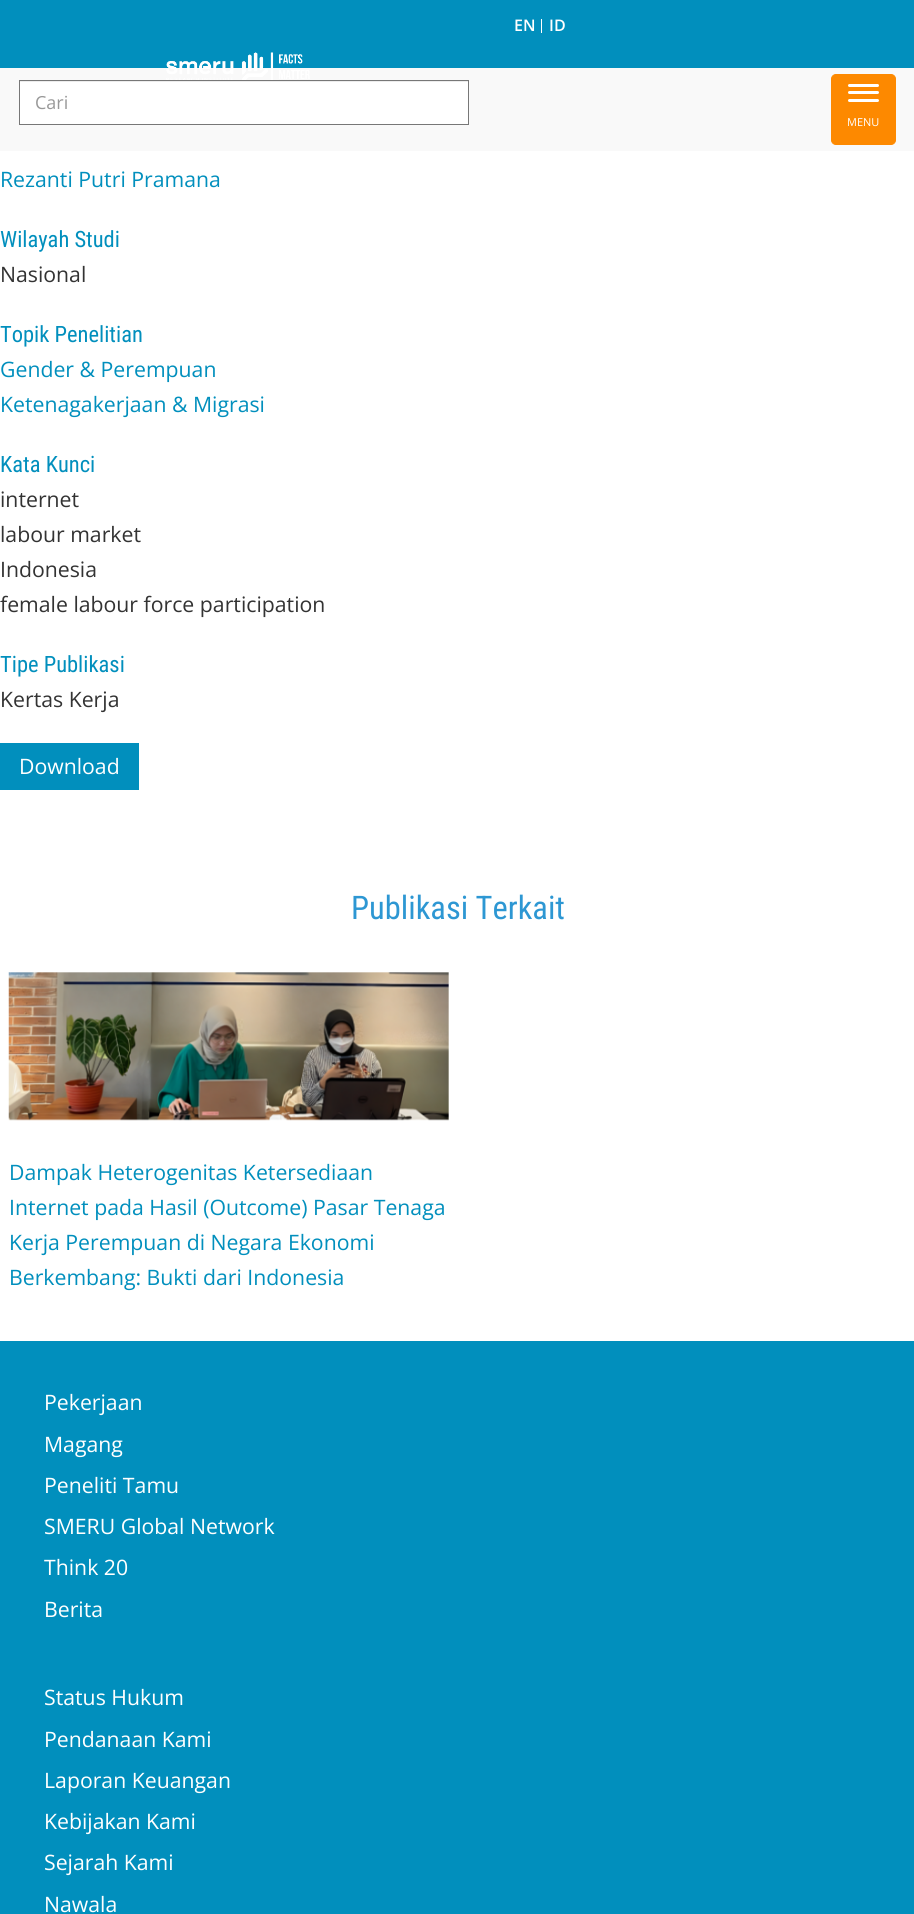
import math
import cairo


def round_path(ctx, x, y, w, h, r):
	ctx.new_sub_path()
	for i, (u, v) in enumerate([(x + w - r, y + h - r), (x + r, y + h - r), (x + r, y + r), (x + w - r, y + r)]):
		ctx.arc(u, v, r, i * math.pi / 2, (i + 1) * math.pi / 2)
	ctx.close_path()

def paste(ctx, path, x, y, w, h):
	ctx.save()
	ctx.set_source_surface(cairo.ImageSurface.create_from_png(path), x, y)
	ctx.rectangle(x, y, w, h)
	ctx.fill()
	ctx.restore()

def draw(ctx):
	ctx.set_source_rgb(1, 1, 1)
	ctx.paint()
	ctx.set_source_rgb(0.973, 0.973, 0.973)
	ctx.rectangle(0, 68, 914, 83)
	ctx.fill()
	ctx.set_source_rgb(0.004, 0.561, 0.741)
	ctx.rectangle(0, 0, 914, 68)
	ctx.fill()
	ctx.set_source_rgb(1, 1, 1)
	ctx.rectangle(541, 19, 1, 14)
	ctx.fill()
	ctx.select_font_face('Open Sans SemiBold')
	ctx.set_font_size(16)
	ctx.move_to(514, 31)
	ctx.show_text('EN')
	ctx.move_to(549, 31)
	ctx.show_text('ID')
	paste(ctx, 'media/1.png', 166, 52, 144, 28)
	ctx.rectangle(20, 82, 448, 42)
	ctx.fill()
	ctx.set_source_rgb(0.925, 0.925, 0.925)
	ctx.rectangle(20, 81, 448, 1)
	ctx.fill()
	ctx.rectangle(19.5, 80.5, 449, 44)
	ctx.set_source_rgb(0.467, 0.467, 0.467)
	ctx.set_line_width(1)
	ctx.stroke()
	ctx.select_font_face('Open Sans')
	ctx.set_font_size(18)
	ctx.set_source_rgb(0.6, 0.6, 0.6)
	ctx.move_to(35, 109)
	ctx.show_text('Cari')
	ctx.set_source_rgb(0.992, 0.537, 0)
	round_path(ctx, 831.5, 74.5, 64, 70, 4.5)
	ctx.fill_preserve()
	ctx.stroke()
	ctx.set_source_rgb(1, 1, 1)
	round_path(ctx, 848, 84, 31, 3, 1.5)
	ctx.fill()
	round_path(ctx, 848, 91, 31, 3, 1.5)
	ctx.fill()
	round_path(ctx, 848, 99, 31, 3, 1.5)
	ctx.fill()
	ctx.set_font_size(11)
	ctx.move_to(847, 126)
	ctx.show_text('MENU')
	ctx.set_font_size(21.25)
	ctx.set_source_rgb(0.004, 0.561, 0.741)
	ctx.move_to(0, 187)
	ctx.show_text('Rezanti Putri Pramana')
	ctx.select_font_face('Roboto Condensed')
	ctx.set_font_size(22.5)
	ctx.move_to(0, 247)
	ctx.show_text('Wilayah Studi')
	ctx.select_font_face('Open Sans')
	ctx.set_font_size(21.25)
	ctx.set_source_rgb(0.2, 0.2, 0.2)
	ctx.move_to(0, 282)
	ctx.show_text('Nasional')
	ctx.select_font_face('Roboto Condensed')
	ctx.set_font_size(22.5)
	ctx.set_source_rgb(0.004, 0.561, 0.741)
	ctx.move_to(0, 342)
	ctx.show_text('Topik Penelitian')
	ctx.select_font_face('Open Sans')
	ctx.set_font_size(21.25)
	ctx.move_to(0, 377)
	ctx.show_text('Gender & Perempuan')
	ctx.move_to(0, 412)
	ctx.show_text('Ketenagakerjaan & Migrasi')
	ctx.select_font_face('Roboto Condensed')
	ctx.set_font_size(22.5)
	ctx.move_to(0, 472)
	ctx.show_text('Kata Kunci')
	ctx.select_font_face('Open Sans')
	ctx.set_font_size(21.25)
	ctx.set_source_rgb(0.2, 0.2, 0.2)
	for x, y, s in [
		(0, 507, 'internet'),
		(0, 542, 'labour market'),
		(0, 577, 'Indonesia'),
		(0, 612, 'female labour force participation'),
	]:
		ctx.move_to(x, y)
		ctx.show_text(s)
	ctx.select_font_face('Roboto Condensed')
	ctx.set_font_size(22.5)
	ctx.set_source_rgb(0.004, 0.561, 0.741)
	ctx.move_to(0, 672)
	ctx.show_text('Tipe Publikasi')
	ctx.select_font_face('Open Sans')
	ctx.set_font_size(21.25)
	ctx.set_source_rgb(0.2, 0.2, 0.2)
	ctx.move_to(0, 707)
	ctx.show_text('Kertas Kerja')
	ctx.set_source_rgb(0.004, 0.561, 0.741)
	ctx.rectangle(0, 743, 139, 47)
	ctx.fill()
	ctx.set_source_rgb(1, 1, 1)
	ctx.move_to(19, 774)
	ctx.show_text('Download')
	ctx.select_font_face('Roboto Condensed')
	ctx.set_font_size(32.5)
	ctx.set_source_rgb(0.176, 0.592, 0.827)
	ctx.move_to(351, 919)
	ctx.show_text('Publikasi Terkait')
	paste(ctx, 'media/2.png', 8, 972, 441, 149)
	ctx.select_font_face('Open Sans')
	ctx.set_font_size(21.25)
	ctx.set_source_rgb(0.004, 0.561, 0.741)
	for x, y, s in [
		(9, 1180, 'Dampak Heterogenitas Ketersediaan'),
		(9, 1215, 'Internet pada Hasil (Outcome) Pasar Tenaga'),
		(9, 1250, 'Kerja Perempuan di Negara Ekonomi'),
		(9, 1285, 'Berkembang: Bukti dari Indonesia'),
	]:
		ctx.move_to(x, y)
		ctx.show_text(s)
	ctx.rectangle(0, 1341, 914, 573)
	ctx.fill()
	ctx.set_source_rgb(1, 1, 1)
	for x, y, s in [
		(44, 1410, 'Pekerjaan'),
		(44, 1452, 'Magang'),
		(44, 1493, 'Peneliti Tamu'),
		(44, 1534, 'SMERU Global Network'),
		(44, 1575, 'Think 20'),
		(44, 1617, 'Berita'),
		(44, 1705, 'Status Hukum'),
		(44, 1747, 'Pendanaan Kami'),
		(44, 1788, 'Laporan Keuangan'),
		(44, 1829, 'Kebijakan Kami'),
		(44, 1870, 'Sejarah Kami'),
		(44, 1912, 'Nawala'),
	]:
		ctx.move_to(x, y)
		ctx.show_text(s)


surface = cairo.ImageSurface(cairo.FORMAT_RGB24, 914, 1914)
ctx = cairo.Context(surface)
options = cairo.FontOptions()
options.set_hint_metrics(cairo.HINT_METRICS_OFF)
options.set_hint_style(cairo.HINT_STYLE_NONE)
ctx.set_font_options(options)
ctx.set_miter_limit(4)
draw(ctx)
surface.write_to_png('image.png')
